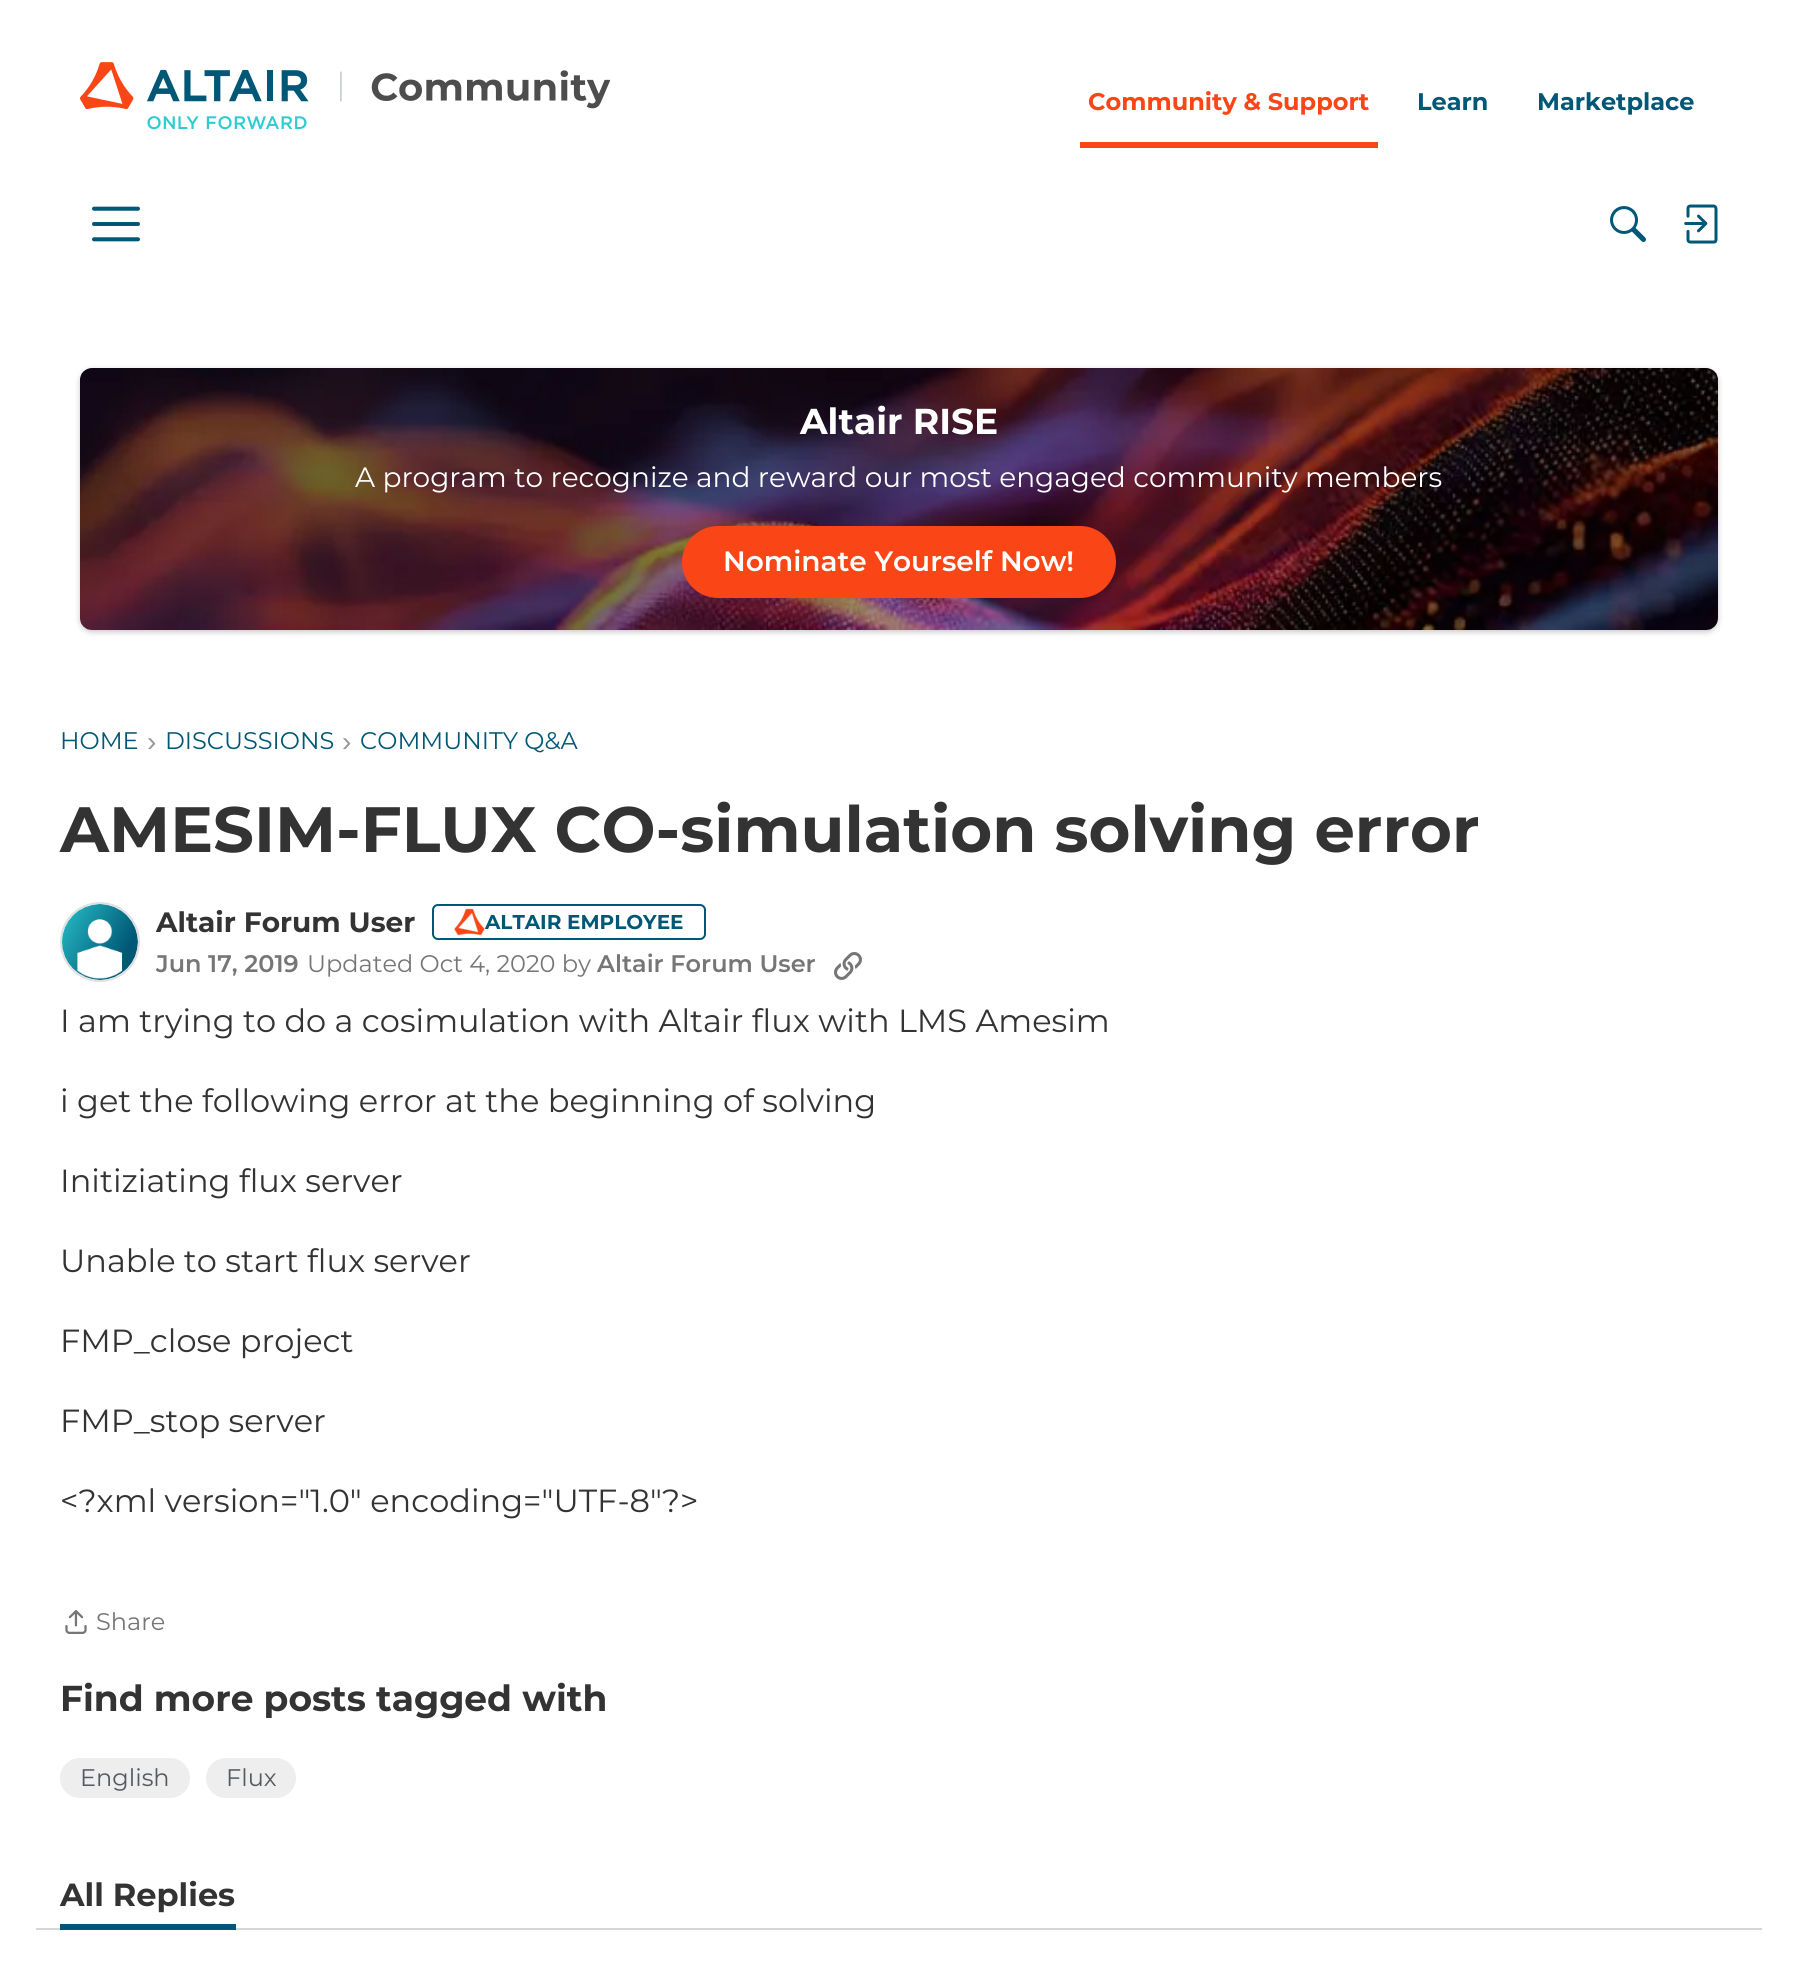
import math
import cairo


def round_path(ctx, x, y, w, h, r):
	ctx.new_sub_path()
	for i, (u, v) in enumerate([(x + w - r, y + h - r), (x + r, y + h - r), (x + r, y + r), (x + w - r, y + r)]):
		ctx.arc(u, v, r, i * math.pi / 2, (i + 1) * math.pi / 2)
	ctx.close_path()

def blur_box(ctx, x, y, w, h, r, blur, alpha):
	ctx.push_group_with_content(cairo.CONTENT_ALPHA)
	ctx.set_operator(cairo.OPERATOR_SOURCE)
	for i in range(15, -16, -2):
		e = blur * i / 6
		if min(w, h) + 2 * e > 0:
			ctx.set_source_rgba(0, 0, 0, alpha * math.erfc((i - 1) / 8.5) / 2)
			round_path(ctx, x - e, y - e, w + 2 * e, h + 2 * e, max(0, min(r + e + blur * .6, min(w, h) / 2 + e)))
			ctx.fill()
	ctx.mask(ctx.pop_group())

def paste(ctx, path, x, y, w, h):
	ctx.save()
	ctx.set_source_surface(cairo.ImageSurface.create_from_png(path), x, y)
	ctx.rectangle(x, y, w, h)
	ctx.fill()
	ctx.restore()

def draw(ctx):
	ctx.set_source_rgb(1, 1, 1)
	ctx.paint()
	paste(ctx, 'media/1.png', 80, 62, 530, 68)
	ctx.select_font_face('Montserrat', cairo.FONT_SLANT_NORMAL, cairo.FONT_WEIGHT_BOLD)
	ctx.set_font_size(24)
	ctx.set_source_rgb(0.98, 0.275, 0.086)
	ctx.move_to(1088, 110)
	ctx.show_text('Community & Support')
	ctx.rectangle(1080, 142, 298, 6)
	ctx.fill()
	ctx.set_source_rgb(0, 0.341, 0.463)
	ctx.move_to(1417, 110)
	ctx.show_text('Learn')
	ctx.move_to(1537, 110)
	ctx.show_text('Marketplace')
	paste(ctx, 'media/2.png', 92, 206, 48, 36)
	paste(ctx, 'media/3.png', 1610, 206, 36, 36)
	paste(ctx, 'media/4.png', 1684, 204, 34, 40)
	ctx.set_source_rgb(0, 0, 0)
	blur_box(ctx, 80, 370, 1638, 262, 12, 3, 0.22)
	paste(ctx, 'media/5.png', 80, 368, 1638, 262)
	ctx.set_font_size(36)
	ctx.set_source_rgb(1, 1, 1)
	ctx.move_to(800, 434)
	ctx.show_text('Altair RISE')
	ctx.select_font_face('Montserrat')
	ctx.set_font_size(28)
	ctx.move_to(355, 487)
	ctx.show_text('A program to recognize and reward our most engaged community members')
	ctx.set_source_rgb(0.98, 0.275, 0.086)
	round_path(ctx, 683, 527, 432, 70, 35)
	ctx.fill_preserve()
	ctx.stroke()
	ctx.select_font_face('Montserrat SemiBold')
	ctx.set_source_rgb(1, 1, 1)
	ctx.move_to(723, 571)
	ctx.show_text('Nominate Yourself Now!')
	ctx.select_font_face('Montserrat')
	ctx.set_font_size(24)
	ctx.set_source_rgb(0, 0.341, 0.463)
	ctx.move_to(60, 749)
	ctx.show_text('HOME')
	ctx.select_font_face('Liberation Sans')
	ctx.set_font_size(28)
	ctx.set_source_rgb(0.6, 0.6, 0.6)
	ctx.move_to(147, 751)
	ctx.show_text('›')
	ctx.select_font_face('Montserrat')
	ctx.set_font_size(24)
	ctx.set_source_rgb(0, 0.341, 0.463)
	ctx.move_to(165, 749)
	ctx.show_text('DISCUSSIONS')
	ctx.select_font_face('Liberation Sans')
	ctx.set_font_size(28)
	ctx.set_source_rgb(0.6, 0.6, 0.6)
	ctx.move_to(342, 751)
	ctx.show_text('›')
	ctx.select_font_face('Montserrat')
	ctx.set_font_size(24)
	ctx.set_source_rgb(0, 0.341, 0.463)
	ctx.move_to(360, 749)
	ctx.show_text('COMMUNITY Q&A')
	ctx.select_font_face('Montserrat', cairo.FONT_SLANT_NORMAL, cairo.FONT_WEIGHT_BOLD)
	ctx.set_font_size(64)
	ctx.set_source_rgb(0.2, 0.2, 0.2)
	ctx.move_to(60, 852)
	ctx.show_text('AMESIM-FLUX CO-simulation solving error')
	ctx.new_path()
	ctx.arc(100, 942, 39, 0, 2 * math.pi)
	ctx.set_source_rgb(0.878, 0.878, 0.878)
	ctx.stroke()
	paste(ctx, 'media/6.png', 62, 904, 76, 76)
	ctx.set_font_size(28)
	ctx.set_source_rgb(0.2, 0.2, 0.2)
	ctx.move_to(156, 932)
	ctx.show_text('Altair Forum User')
	round_path(ctx, 433, 905, 272, 34, 5)
	ctx.set_source_rgb(0, 0.341, 0.463)
	ctx.stroke()
	paste(ctx, 'media/7.png', 454, 908, 31, 28)
	ctx.set_font_size(20)
	ctx.move_to(485, 929)
	ctx.show_text('ALTAIR EMPLOYEE')
	ctx.select_font_face('Montserrat SemiBold')
	ctx.set_font_size(24)
	ctx.set_source_rgb(0.463, 0.463, 0.463)
	ctx.move_to(156, 972)
	ctx.show_text('Jun 17, 2019')
	ctx.select_font_face('Montserrat')
	ctx.move_to(307, 972)
	ctx.show_text('Updated Oct 4, 2020 by')
	ctx.select_font_face('Montserrat SemiBold')
	ctx.move_to(597, 972)
	ctx.show_text('Altair Forum User')
	paste(ctx, 'media/8.png', 834, 952, 28, 28)
	ctx.select_font_face('Montserrat')
	ctx.set_font_size(32)
	ctx.set_source_rgb(0.2, 0.2, 0.2)
	for x, y, s in [
		(60, 1032, 'I am trying to do a cosimulation with Altair flux with LMS Amesim'),
		(60, 1112, 'i get the following error at the beginning of solving'),
		(60, 1192, 'Initiziating flux server'),
		(60, 1272, 'Unable to start flux server'),
		(60, 1352, 'FMP_close project'),
		(60, 1432, 'FMP_stop server'),
		(60, 1512, '<?xml version="1.0" encoding="UTF-8"?>'),
	]:
		ctx.move_to(x, y)
		ctx.show_text(s)
	paste(ctx, 'media/9.png', 65, 1610, 22, 24)
	ctx.set_font_size(24)
	ctx.set_source_rgb(0.463, 0.463, 0.463)
	ctx.move_to(96, 1630)
	ctx.show_text('Share')
	ctx.select_font_face('Montserrat', cairo.FONT_SLANT_NORMAL, cairo.FONT_WEIGHT_BOLD)
	ctx.set_font_size(36)
	ctx.set_source_rgb(0.2, 0.2, 0.2)
	ctx.move_to(60, 1711)
	ctx.show_text('Find more posts tagged with')
	ctx.set_source_rgb(0.933, 0.933, 0.937)
	round_path(ctx, 61, 1759, 128, 38, 19)
	ctx.fill_preserve()
	ctx.stroke()
	ctx.select_font_face('Montserrat')
	ctx.set_font_size(24)
	ctx.set_source_rgb(0.333, 0.353, 0.384)
	ctx.move_to(80, 1786)
	ctx.show_text('English')
	ctx.set_source_rgb(0.933, 0.933, 0.937)
	round_path(ctx, 207, 1759, 88, 38, 19)
	ctx.fill_preserve()
	ctx.stroke()
	ctx.set_source_rgb(0.333, 0.353, 0.384)
	ctx.move_to(226, 1786)
	ctx.show_text('Flux')
	ctx.set_source_rgb(0.839, 0.839, 0.839)
	ctx.rectangle(36, 1928, 1726, 2)
	ctx.fill()
	ctx.select_font_face('Montserrat', cairo.FONT_SLANT_NORMAL, cairo.FONT_WEIGHT_BOLD)
	ctx.set_font_size(32)
	ctx.set_source_rgb(0.2, 0.2, 0.2)
	ctx.move_to(60, 1906)
	ctx.show_text('All Replies')
	ctx.set_source_rgb(0, 0.341, 0.463)
	ctx.rectangle(60, 1924, 176, 6)
	ctx.fill()


surface = cairo.ImageSurface(cairo.FORMAT_RGB24, 1797, 1973)
ctx = cairo.Context(surface)
options = cairo.FontOptions()
options.set_hint_metrics(cairo.HINT_METRICS_OFF)
options.set_hint_style(cairo.HINT_STYLE_NONE)
ctx.set_font_options(options)
ctx.set_miter_limit(4)
draw(ctx)
surface.write_to_png('image.png')
